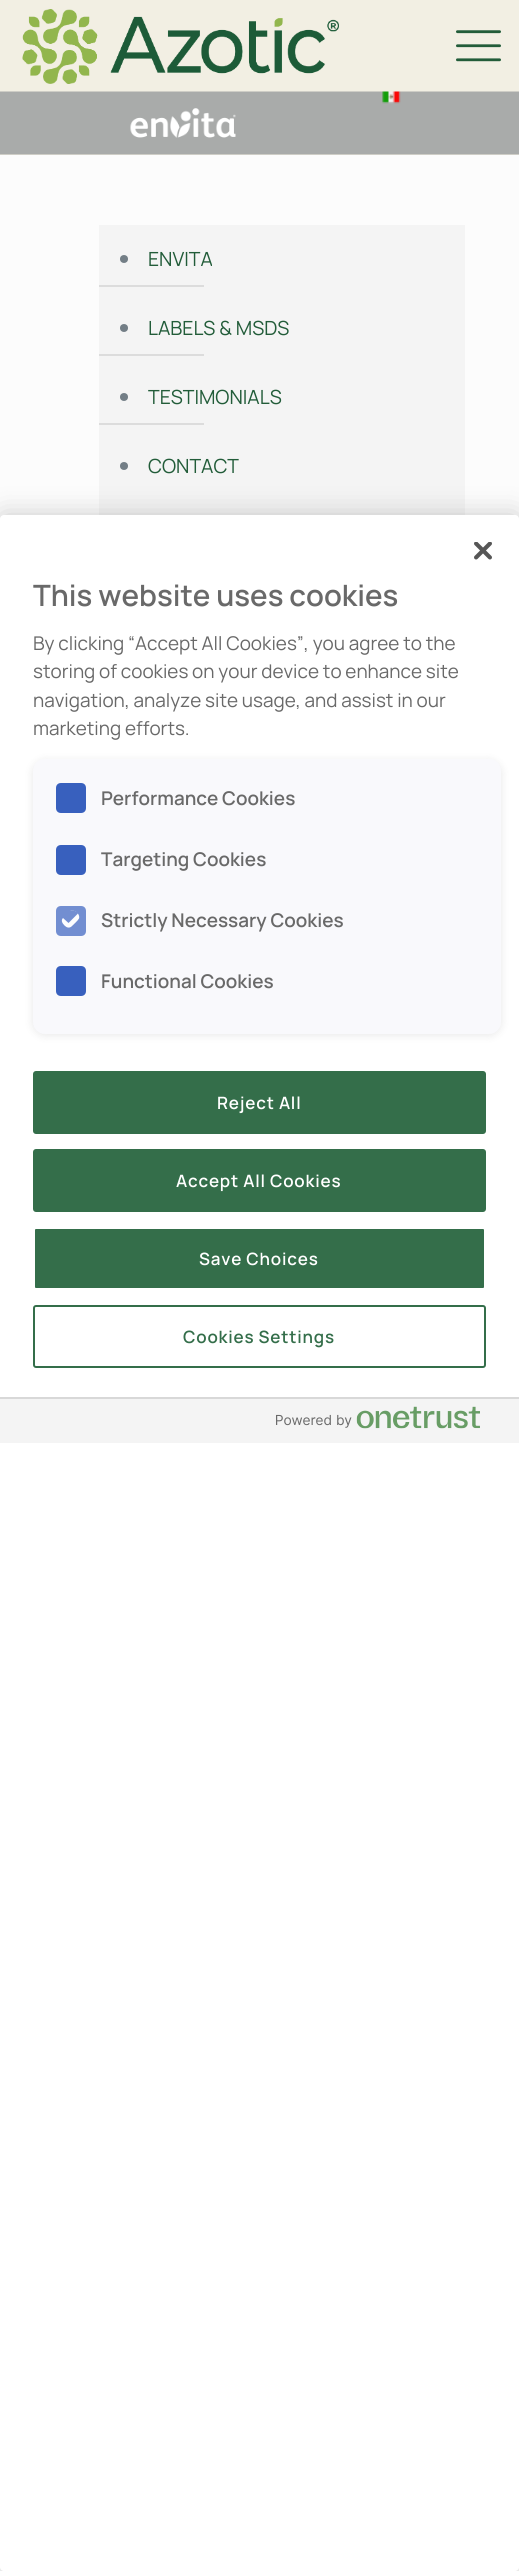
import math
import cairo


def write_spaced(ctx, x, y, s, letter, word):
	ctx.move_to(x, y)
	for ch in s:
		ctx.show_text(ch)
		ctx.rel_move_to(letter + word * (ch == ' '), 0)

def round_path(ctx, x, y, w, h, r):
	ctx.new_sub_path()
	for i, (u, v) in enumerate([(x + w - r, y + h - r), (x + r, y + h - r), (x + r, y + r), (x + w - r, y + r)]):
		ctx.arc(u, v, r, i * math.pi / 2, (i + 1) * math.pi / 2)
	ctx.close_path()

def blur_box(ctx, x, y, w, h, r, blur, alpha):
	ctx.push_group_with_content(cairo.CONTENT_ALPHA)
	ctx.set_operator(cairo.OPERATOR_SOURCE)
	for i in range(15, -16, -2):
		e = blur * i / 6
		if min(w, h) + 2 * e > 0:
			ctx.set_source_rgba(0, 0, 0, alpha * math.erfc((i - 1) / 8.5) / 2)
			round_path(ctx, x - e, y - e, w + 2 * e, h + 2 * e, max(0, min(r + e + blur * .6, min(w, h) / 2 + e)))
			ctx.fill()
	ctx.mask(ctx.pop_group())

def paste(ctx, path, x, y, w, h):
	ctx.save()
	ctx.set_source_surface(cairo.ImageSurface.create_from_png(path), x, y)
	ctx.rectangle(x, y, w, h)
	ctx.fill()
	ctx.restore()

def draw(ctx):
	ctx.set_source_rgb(0.988, 0.988, 0.988)
	ctx.paint()
	ctx.set_source_rgb(0.949, 0.937, 0.89)
	ctx.rectangle(0, 0, 519, 155)
	ctx.fill()
	paste(ctx, 'media/1.png', 22, 9, 317, 75)
	paste(ctx, 'media/2.png', 456, 30, 45, 32)
	paste(ctx, 'media/3.png', 0, 91, 519, 64)
	paste(ctx, 'media/4.png', 130, 108, 106, 30)
	ctx.set_source_rgb(0.957, 0.957, 0.957)
	ctx.rectangle(99, 225, 366, 290)
	ctx.fill()
	ctx.set_source_rgb(0.451, 0.494, 0.525)
	ctx.arc(124, 259, 4, 0, 2 * math.pi)
	ctx.fill()
	ctx.select_font_face('Manrope')
	ctx.set_font_size(19.5)
	ctx.set_source_rgb(0.133, 0.361, 0.224)
	ctx.move_to(148, 266)
	ctx.show_text('ENVITA')
	ctx.set_source_rgb(0.863, 0.863, 0.863)
	ctx.rectangle(99, 285, 105, 2)
	ctx.fill()
	ctx.set_source_rgb(0.451, 0.494, 0.525)
	ctx.arc(124, 328, 4, 0, 2 * math.pi)
	ctx.fill()
	ctx.set_source_rgb(0.133, 0.361, 0.224)
	ctx.move_to(148, 335)
	ctx.show_text('LABELS & MSDS')
	ctx.set_source_rgb(0.863, 0.863, 0.863)
	ctx.rectangle(99, 354, 105, 2)
	ctx.fill()
	ctx.set_source_rgb(0.451, 0.494, 0.525)
	ctx.arc(124, 397, 4, 0, 2 * math.pi)
	ctx.fill()
	ctx.set_source_rgb(0.133, 0.361, 0.224)
	ctx.move_to(148, 404)
	ctx.show_text('TESTIMONIALS')
	ctx.set_source_rgb(0.863, 0.863, 0.863)
	ctx.rectangle(99, 423, 105, 2)
	ctx.fill()
	ctx.set_source_rgb(0.451, 0.494, 0.525)
	ctx.arc(124, 466, 4, 0, 2 * math.pi)
	ctx.fill()
	ctx.set_source_rgb(0.133, 0.361, 0.224)
	ctx.move_to(148, 473)
	ctx.show_text('CONTACT')
	ctx.set_source_rgb(0, 0, 0)
	blur_box(ctx, 0, 515, 519, 2056, 4, 13.5, 0.2)
	ctx.set_source_rgb(1, 1, 1)
	round_path(ctx, 0, 515, 519, 2056, 4)
	ctx.fill()
	paste(ctx, 'media/5.png', 474, 542, 18, 18)
	ctx.select_font_face('Manrope SemiBold')
	ctx.set_font_size(29.4)
	ctx.set_source_rgb(0.412, 0.412, 0.412)
	ctx.move_to(33, 606)
	ctx.show_text('This website uses cookies')
	ctx.select_font_face('Manrope')
	ctx.set_font_size(18.9)
	for x, y, s in [
		(33, 650, 'By clicking “Accept All Cookies”, you agree to the'),
		(33, 678, 'storing of cookies on your device to enhance site'),
		(33, 707, 'navigation, analyze site usage, and assist in our'),
		(33, 735, 'marketing efforts.'),
	]:
		ctx.move_to(x, y)
		ctx.show_text(s)
	ctx.set_source_rgb(0, 0, 0)
	blur_box(ctx, 33, 761, 468, 274, 12, 4.5, 0.1)
	ctx.set_source_rgb(0.976, 0.976, 0.988)
	round_path(ctx, 33, 759, 468, 275, 12)
	ctx.fill()
	ctx.set_source_rgb(0.22, 0.376, 0.745)
	ctx.new_path()
	ctx.move_to(61, 783)
	ctx.line_to(81, 783)
	ctx.curve_to(84, 783, 86, 785, 86, 788)
	ctx.line_to(86, 808)
	ctx.curve_to(86, 811, 84, 813, 81, 813)
	ctx.line_to(61, 813)
	ctx.curve_to(58, 813, 56, 811, 56, 808)
	ctx.line_to(56, 788)
	ctx.curve_to(56, 785, 58, 783, 61, 783)
	ctx.close_path()
	ctx.fill()
	ctx.select_font_face('Manrope SemiBold')
	ctx.set_source_rgb(0.412, 0.412, 0.412)
	ctx.move_to(101, 805)
	ctx.show_text('Performance Cookies')
	ctx.set_source_rgb(0.22, 0.376, 0.745)
	ctx.new_path()
	ctx.move_to(61, 845)
	ctx.line_to(81, 845)
	ctx.curve_to(84, 845, 86, 847, 86, 850)
	ctx.line_to(86, 870)
	ctx.curve_to(86, 873, 84, 875, 81, 875)
	ctx.line_to(61, 875)
	ctx.curve_to(58, 875, 56, 873, 56, 870)
	ctx.line_to(56, 850)
	ctx.curve_to(56, 847, 58, 845, 61, 845)
	ctx.close_path()
	ctx.fill()
	ctx.set_source_rgb(0.412, 0.412, 0.412)
	ctx.move_to(101, 866)
	ctx.show_text('Targeting Cookies')
	ctx.set_source_rgb(0.447, 0.557, 0.82)
	ctx.new_path()
	ctx.move_to(61, 906)
	ctx.line_to(81, 906)
	ctx.curve_to(84, 906, 86, 908, 86, 911)
	ctx.line_to(86, 931)
	ctx.curve_to(86, 934, 84, 936, 81, 936)
	ctx.line_to(61, 936)
	ctx.curve_to(58, 936, 56, 934, 56, 931)
	ctx.line_to(56, 911)
	ctx.curve_to(56, 908, 58, 906, 61, 906)
	ctx.close_path()
	ctx.fill()
	ctx.set_source_rgb(0.992, 0.992, 0.996)
	ctx.set_fill_rule(cairo.FILL_RULE_EVEN_ODD)
	ctx.new_path()
	ctx.move_to(63, 918)
	ctx.line_to(69.5, 911.5)
	ctx.curve_to(73.5, 907.5, 80.5, 914, 79, 918.5)
	ctx.curve_to(78, 920.5, 73.5, 924.5, 71.5, 926.5)
	ctx.curve_to(69, 928.5, 66.5, 927.5, 64.5, 925.5)
	ctx.curve_to(62.5, 923.5, 60.5, 920.5, 63, 918)
	ctx.close_path()
	ctx.move_to(63, 918)
	ctx.line_to(69.5, 911.5)
	ctx.curve_to(71, 910, 74, 910, 76, 911.5)
	ctx.line_to(78, 913.5)
	ctx.line_to(68.5, 923)
	ctx.close_path()
	ctx.fill()
	ctx.set_source_rgb(0.412, 0.412, 0.412)
	ctx.move_to(101, 927)
	ctx.show_text('Strictly Necessary Cookies')
	ctx.set_source_rgb(0.22, 0.376, 0.745)
	ctx.set_fill_rule(cairo.FILL_RULE_WINDING)
	ctx.new_path()
	ctx.move_to(61, 966)
	ctx.line_to(81, 966)
	ctx.curve_to(84, 966, 86, 968, 86, 971)
	ctx.line_to(86, 991)
	ctx.curve_to(86, 994, 84, 996, 81, 996)
	ctx.line_to(61, 996)
	ctx.curve_to(58, 996, 56, 994, 56, 991)
	ctx.line_to(56, 971)
	ctx.curve_to(56, 968, 58, 966, 61, 966)
	ctx.close_path()
	ctx.fill()
	ctx.set_source_rgb(0.412, 0.412, 0.412)
	ctx.move_to(101, 988)
	ctx.show_text('Functional Cookies')
	ctx.set_source_rgb(0.204, 0.431, 0.29)
	round_path(ctx, 34, 1072, 451, 61, 2)
	ctx.fill_preserve()
	ctx.stroke()
	ctx.set_font_size(17)
	ctx.set_source_rgb(1, 1, 1)
	write_spaced(ctx, 217, 1109, 'Reject All', 0.8, 0)
	ctx.set_source_rgb(0.204, 0.431, 0.29)
	round_path(ctx, 34, 1150, 451, 61, 2)
	ctx.fill_preserve()
	ctx.stroke()
	ctx.set_source_rgb(1, 1, 1)
	write_spaced(ctx, 176, 1187, 'Accept All Cookies', 0.8, 0)
	ctx.set_source_rgb(0.204, 0.431, 0.29)
	round_path(ctx, 34, 1228, 451, 61, 2)
	ctx.fill_preserve()
	ctx.set_source_rgb(1, 1, 1)
	ctx.stroke()
	write_spaced(ctx, 199, 1265, 'Save Choices', 0.8, 0)
	round_path(ctx, 34, 1306, 451, 61, 2)
	ctx.set_source_rgb(0.204, 0.431, 0.29)
	ctx.stroke()
	write_spaced(ctx, 183, 1343, 'Cookies Settings', 0.8, 0)
	ctx.set_source_rgb(0.957, 0.957, 0.957)
	ctx.rectangle(0, 1399, 519, 44)
	ctx.fill()
	ctx.set_source_rgb(0.847, 0.847, 0.847)
	ctx.rectangle(0, 1397, 519, 2)
	ctx.fill()
	paste(ctx, 'media/6.png', 276, 1406, 204, 23)


surface = cairo.ImageSurface(cairo.FORMAT_RGB24, 519, 2571)
ctx = cairo.Context(surface)
options = cairo.FontOptions()
options.set_hint_metrics(cairo.HINT_METRICS_OFF)
options.set_hint_style(cairo.HINT_STYLE_NONE)
ctx.set_font_options(options)
ctx.set_miter_limit(4)
draw(ctx)
surface.write_to_png('image.png')
